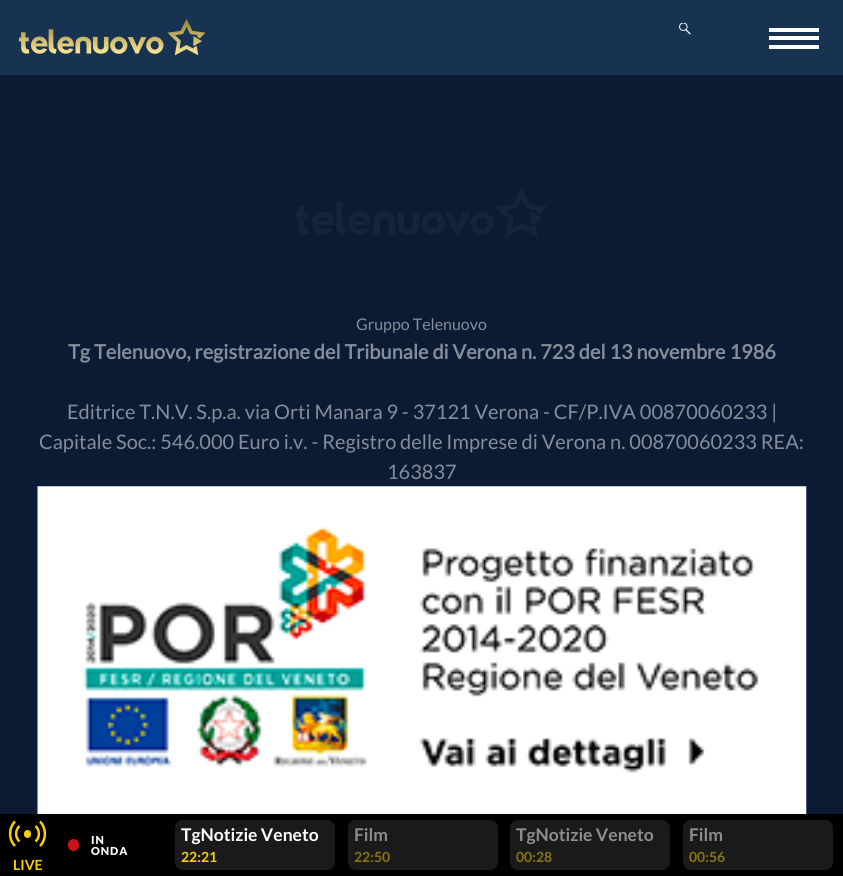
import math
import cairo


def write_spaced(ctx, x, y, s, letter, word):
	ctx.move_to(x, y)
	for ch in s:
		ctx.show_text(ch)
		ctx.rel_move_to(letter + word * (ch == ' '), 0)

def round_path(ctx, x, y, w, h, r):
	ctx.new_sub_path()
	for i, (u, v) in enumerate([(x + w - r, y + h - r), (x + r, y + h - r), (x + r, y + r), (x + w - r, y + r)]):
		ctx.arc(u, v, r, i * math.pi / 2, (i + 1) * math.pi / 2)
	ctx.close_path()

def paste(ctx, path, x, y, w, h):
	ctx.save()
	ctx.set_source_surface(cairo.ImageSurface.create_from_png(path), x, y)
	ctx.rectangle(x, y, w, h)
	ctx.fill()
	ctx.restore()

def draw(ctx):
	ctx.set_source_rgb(0.043, 0.106, 0.204)
	ctx.paint()
	ctx.set_source_rgb(0.094, 0.2, 0.318)
	ctx.rectangle(0, 0, 843, 75)
	ctx.fill()
	paste(ctx, 'media/1.png', 19, 19, 187, 37)
	paste(ctx, 'media/2.png', 679, 23, 12, 12)
	ctx.set_source_rgb(1, 1, 1)
	ctx.rectangle(769, 28, 50, 4)
	ctx.rectangle(769, 36, 50, 4)
	ctx.rectangle(769, 45, 50, 4)
	ctx.fill()
	paste(ctx, 'media/3.png', 295, 188, 252, 49)
	ctx.select_font_face('Lato')
	ctx.set_font_size(16)
	ctx.set_source_rgb(0.522, 0.553, 0.604)
	ctx.move_to(356, 330)
	ctx.show_text('Gruppo Telenuovo')
	ctx.select_font_face('Lato', cairo.FONT_SLANT_NORMAL, cairo.FONT_WEIGHT_BOLD)
	ctx.set_font_size(20)
	ctx.move_to(68, 359)
	ctx.show_text('Tg Telenuovo, registrazione del Tribunale di Verona n. 723 del 13 novembre 1986')
	ctx.select_font_face('Lato')
	for x, y, s in [
		(67, 419, 'Editrice T.N.V. S.p.a. via Orti Manara 9 - 37121 Verona - CF/P.IVA 00870060233 |'),
		(39, 449, 'Capitale Soc.: 546.000 Euro i.v. - Registro delle Imprese di Verona n. 00870060233 REA:'),
		(387, 479, '163837'),
	]:
		ctx.move_to(x, y)
		ctx.show_text(s)
	paste(ctx, 'media/4.png', 37, 486, 770, 328)
	ctx.set_source_rgb(0, 0, 0)
	ctx.rectangle(0, 814, 843, 62)
	ctx.fill()
	ctx.set_source_rgb(0.788, 0.075, 0.106)
	round_path(ctx, 68, 839, 11, 12, 5.5)
	ctx.fill()
	ctx.select_font_face('Lato Black')
	ctx.set_font_size(11)
	ctx.set_source_rgb(1, 1, 1)
	write_spaced(ctx, 91, 844, 'IN', 1, 0)
	write_spaced(ctx, 91, 855, 'ONDA', 1, 0)
	ctx.set_source_rgb(0.973, 0.808, 0.051)
	round_path(ctx, 24, 830, 7, 8, 3.5)
	ctx.fill()
	ctx.new_path()
	ctx.move_to(35.5, 826)
	ctx.curve_to(40, 830, 40, 837.5, 35.5, 841.5)
	ctx.move_to(19.5, 841.5)
	ctx.curve_to(15, 837.5, 15, 830, 19.5, 826)
	ctx.move_to(40, 821.5)
	ctx.curve_to(46.5, 828, 46.5, 839.5, 40, 846)
	ctx.move_to(15, 846)
	ctx.curve_to(8.5, 839.5, 8.5, 828, 15, 821.5)
	ctx.set_line_width(2.5)
	ctx.stroke()
	ctx.select_font_face('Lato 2', cairo.FONT_SLANT_NORMAL, cairo.FONT_WEIGHT_BOLD)
	ctx.set_font_size(14)
	ctx.move_to(13, 870)
	ctx.show_text('LIVE')
	ctx.set_source_rgb(0.102, 0.102, 0.102)
	round_path(ctx, 175, 820, 160, 50, 8)
	ctx.fill()
	ctx.set_font_size(17.5)
	ctx.set_source_rgb(1, 1, 1)
	ctx.move_to(181, 841)
	ctx.show_text('TgNotizie Veneto')
	ctx.set_font_size(14)
	ctx.set_source_rgb(0.973, 0.808, 0.051)
	ctx.move_to(181, 862)
	ctx.show_text('22:21')
	ctx.set_source_rgb(0.102, 0.102, 0.102)
	round_path(ctx, 348, 820, 150, 50, 8)
	ctx.fill()
	ctx.set_font_size(17.5)
	ctx.set_source_rgb(0.553, 0.553, 0.553)
	ctx.move_to(354, 841)
	ctx.show_text('Film')
	ctx.set_font_size(14)
	ctx.set_source_rgb(0.537, 0.455, 0.078)
	ctx.move_to(354, 862)
	ctx.show_text('22:50')
	ctx.set_source_rgb(0.102, 0.102, 0.102)
	round_path(ctx, 510, 820, 160, 50, 8)
	ctx.fill()
	ctx.set_font_size(17.5)
	ctx.set_source_rgb(0.553, 0.553, 0.553)
	ctx.move_to(516, 841)
	ctx.show_text('TgNotizie Veneto')
	ctx.set_font_size(14)
	ctx.set_source_rgb(0.537, 0.455, 0.078)
	ctx.move_to(516, 862)
	ctx.show_text('00:28')
	ctx.set_source_rgb(0.102, 0.102, 0.102)
	round_path(ctx, 683, 820, 150, 50, 8)
	ctx.fill()
	ctx.set_font_size(17.5)
	ctx.set_source_rgb(0.553, 0.553, 0.553)
	ctx.move_to(689, 841)
	ctx.show_text('Film')
	ctx.set_font_size(14)
	ctx.set_source_rgb(0.537, 0.455, 0.078)
	ctx.move_to(689, 862)
	ctx.show_text('00:56')


surface = cairo.ImageSurface(cairo.FORMAT_RGB24, 843, 876)
ctx = cairo.Context(surface)
options = cairo.FontOptions()
options.set_hint_metrics(cairo.HINT_METRICS_OFF)
options.set_hint_style(cairo.HINT_STYLE_NONE)
ctx.set_font_options(options)
ctx.set_miter_limit(4)
draw(ctx)
surface.write_to_png('image.png')
